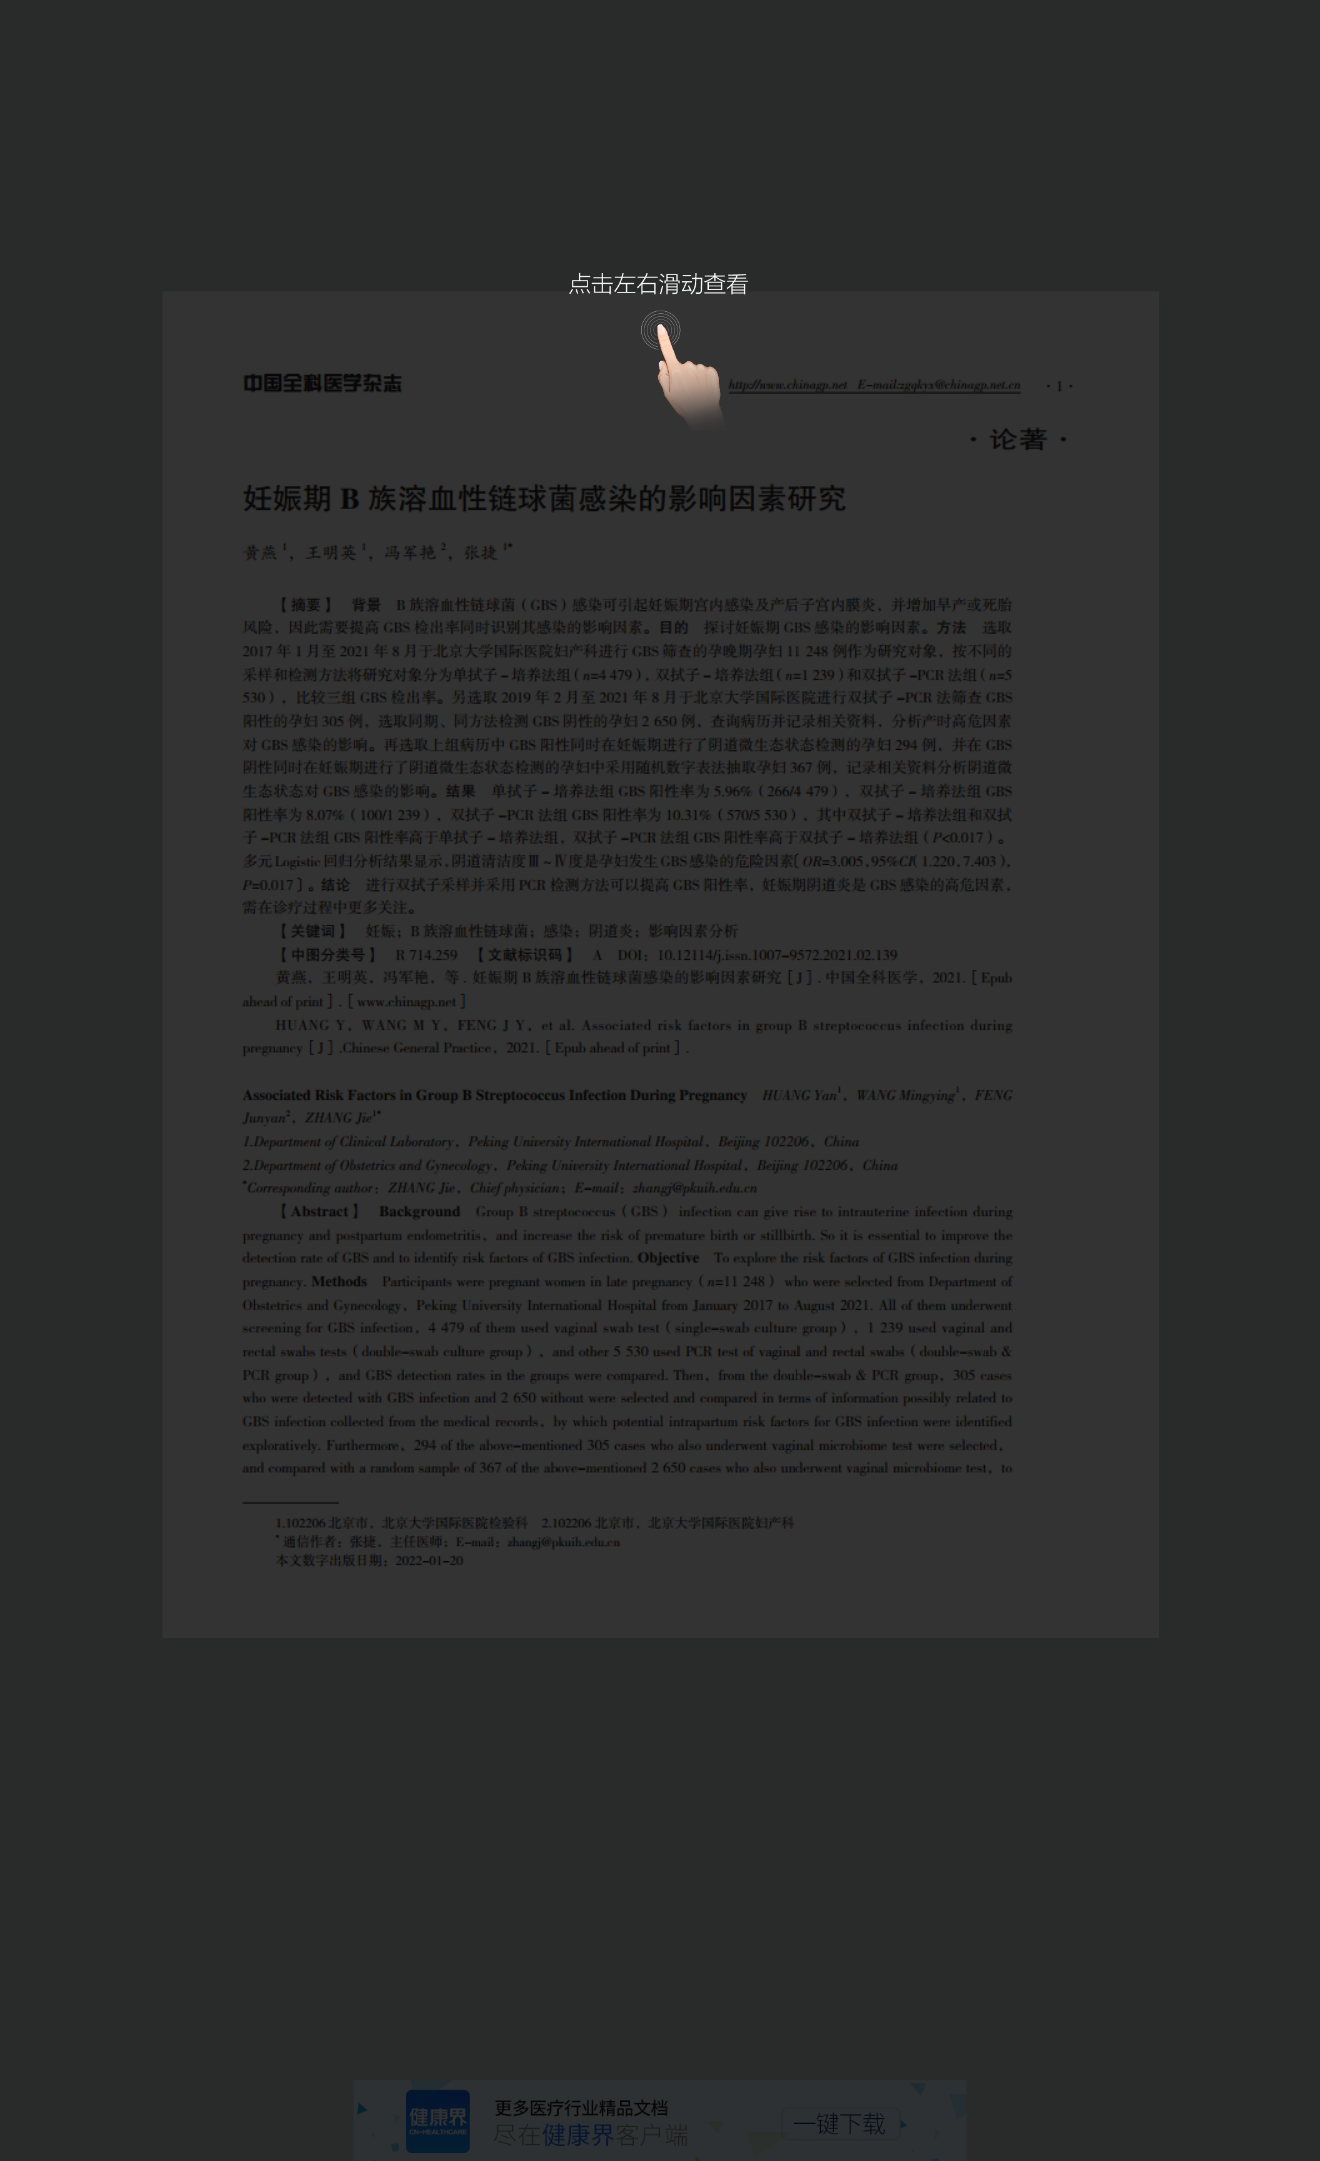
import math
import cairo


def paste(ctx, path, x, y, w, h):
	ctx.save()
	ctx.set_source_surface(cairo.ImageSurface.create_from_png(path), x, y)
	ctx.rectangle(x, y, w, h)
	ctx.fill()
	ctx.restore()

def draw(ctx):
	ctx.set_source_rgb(0.161, 0.169, 0.169)
	ctx.paint()
	paste(ctx, 'media/2.png', 162, 291, 997, 1347)
	paste(ctx, 'media/1.png', 569, 272, 179, 159)
	paste(ctx, 'media/3.png', 353, 2080, 614, 81)


surface = cairo.ImageSurface(cairo.FORMAT_RGB24, 1320, 2161)
ctx = cairo.Context(surface)
options = cairo.FontOptions()
options.set_hint_metrics(cairo.HINT_METRICS_OFF)
options.set_hint_style(cairo.HINT_STYLE_NONE)
ctx.set_font_options(options)
ctx.set_miter_limit(4)
draw(ctx)
surface.write_to_png('image.png')
